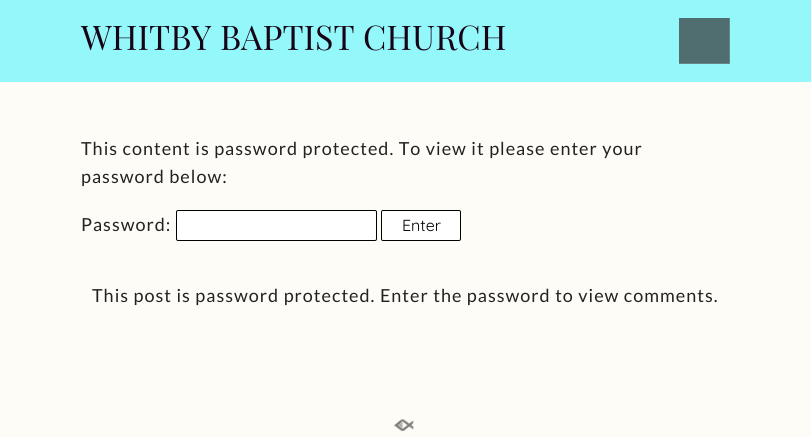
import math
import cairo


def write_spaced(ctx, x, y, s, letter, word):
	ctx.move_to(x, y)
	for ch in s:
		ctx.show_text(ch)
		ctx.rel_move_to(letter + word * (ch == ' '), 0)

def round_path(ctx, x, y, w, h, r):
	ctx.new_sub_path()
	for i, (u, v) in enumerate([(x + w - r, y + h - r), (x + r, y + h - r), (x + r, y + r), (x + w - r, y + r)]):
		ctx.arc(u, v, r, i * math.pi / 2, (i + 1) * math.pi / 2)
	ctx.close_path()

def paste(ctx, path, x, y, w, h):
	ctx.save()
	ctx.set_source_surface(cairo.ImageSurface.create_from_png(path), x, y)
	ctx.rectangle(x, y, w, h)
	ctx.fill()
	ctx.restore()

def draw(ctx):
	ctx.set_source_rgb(0.992, 0.988, 0.961)
	ctx.paint()
	ctx.set_source_rgb(0.58, 0.969, 0.98)
	ctx.rectangle(0, 0, 811, 82)
	ctx.fill()
	ctx.select_font_face('Playfair Display')
	ctx.set_font_size(34)
	ctx.set_source_rgb(0.09, 0.02, 0.09)
	ctx.move_to(81, 50)
	ctx.show_text('WHITBY BAPTIST CHURCH')
	ctx.set_source_rgb(0.314, 0.431, 0.435)
	ctx.rectangle(679, 18, 50, 45)
	ctx.fill()
	ctx.set_source_rgb(0.408, 0.525, 0.529)
	ctx.rectangle(729, 18, 1, 46)
	ctx.rectangle(679, 63, 51, 1)
	ctx.fill()
	ctx.select_font_face('Lato')
	ctx.set_font_size(18)
	ctx.set_source_rgb(0.133, 0.133, 0.133)
	for x, y, s in [
		(81, 155, 'This content is password protected. To view it please enter your'),
		(81, 183, 'password below:'),
		(81, 231, 'Password:'),
	]:
		write_spaced(ctx, x, y, s, 1, 0)
	ctx.set_source_rgb(1, 1, 1)
	round_path(ctx, 176.5, 210.5, 200, 30, 1.5)
	ctx.fill_preserve()
	ctx.set_source_rgb(0, 0, 0)
	ctx.set_line_width(1)
	ctx.stroke()
	ctx.set_source_rgb(1, 1, 1)
	round_path(ctx, 381.5, 210.5, 79, 30, 1.5)
	ctx.fill_preserve()
	ctx.set_source_rgb(0, 0, 0)
	ctx.stroke()
	ctx.select_font_face('Quicksand')
	ctx.set_font_size(16)
	ctx.move_to(402, 231)
	ctx.show_text('Enter')
	ctx.select_font_face('Lato')
	ctx.set_font_size(18)
	ctx.set_source_rgb(0.133, 0.133, 0.133)
	write_spaced(ctx, 92, 302, 'This post is password protected. Enter the password to view comments.', 1, 0)
	paste(ctx, 'media/1.png', 394, 419, 20, 13)


surface = cairo.ImageSurface(cairo.FORMAT_RGB24, 811, 437)
ctx = cairo.Context(surface)
options = cairo.FontOptions()
options.set_hint_metrics(cairo.HINT_METRICS_OFF)
options.set_hint_style(cairo.HINT_STYLE_NONE)
ctx.set_font_options(options)
ctx.set_miter_limit(4)
draw(ctx)
surface.write_to_png('image.png')
